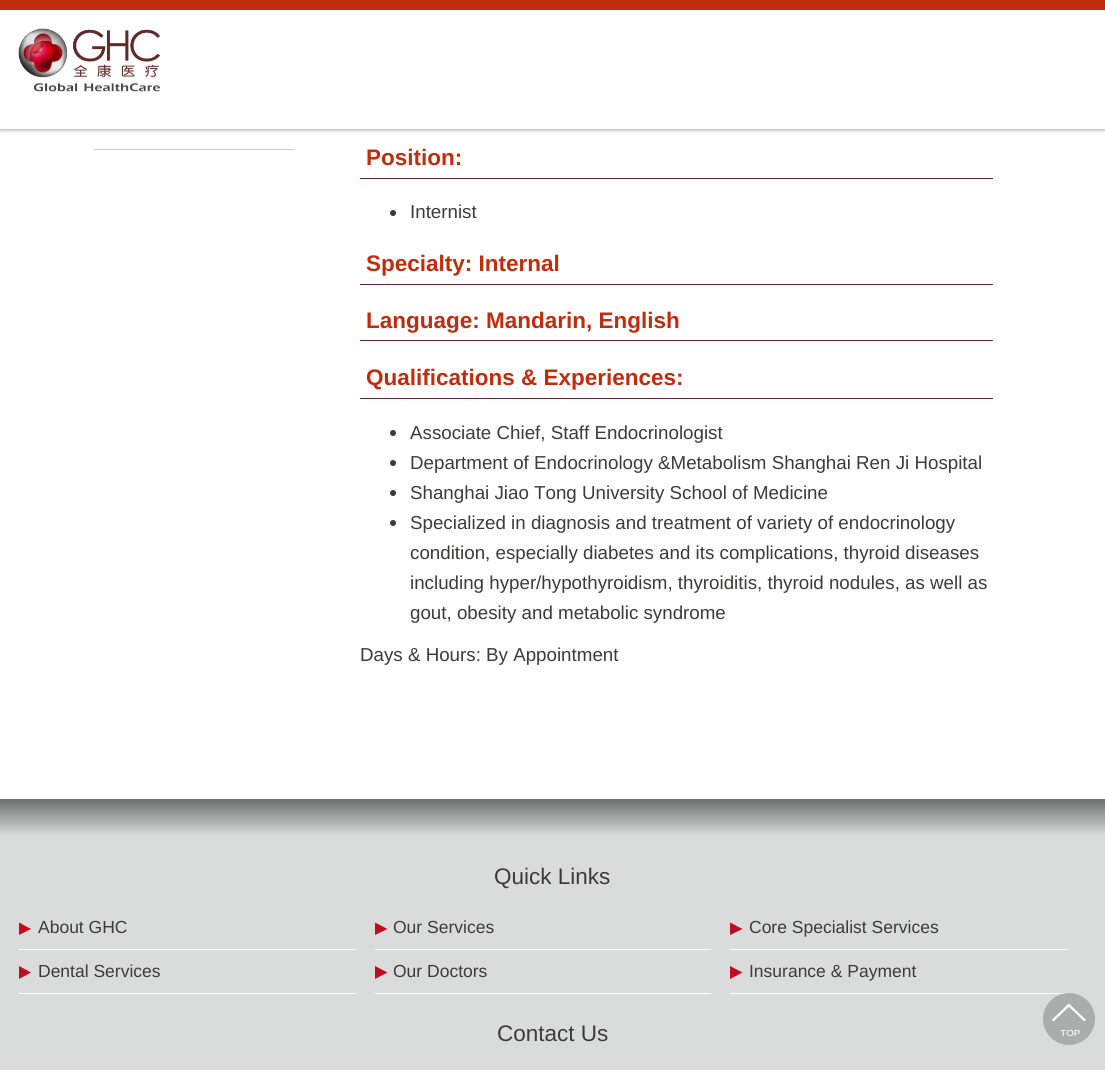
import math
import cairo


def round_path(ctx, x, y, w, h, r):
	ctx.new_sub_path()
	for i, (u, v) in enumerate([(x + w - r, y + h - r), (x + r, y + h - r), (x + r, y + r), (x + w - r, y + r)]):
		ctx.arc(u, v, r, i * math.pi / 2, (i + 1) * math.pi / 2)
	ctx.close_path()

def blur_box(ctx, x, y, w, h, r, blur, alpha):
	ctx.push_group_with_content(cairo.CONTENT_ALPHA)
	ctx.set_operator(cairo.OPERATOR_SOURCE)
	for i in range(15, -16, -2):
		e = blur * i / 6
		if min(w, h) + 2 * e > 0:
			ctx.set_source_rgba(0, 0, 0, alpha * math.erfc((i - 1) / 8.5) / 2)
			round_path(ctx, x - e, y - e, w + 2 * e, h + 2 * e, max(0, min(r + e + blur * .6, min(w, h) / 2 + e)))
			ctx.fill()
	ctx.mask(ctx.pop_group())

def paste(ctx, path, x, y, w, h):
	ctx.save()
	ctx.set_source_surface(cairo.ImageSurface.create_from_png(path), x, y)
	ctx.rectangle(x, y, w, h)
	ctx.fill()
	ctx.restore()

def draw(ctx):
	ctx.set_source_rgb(1, 1, 1)
	ctx.paint()
	ctx.set_source_rgb(0, 0, 0)
	blur_box(ctx, 0, -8, 1105, 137, 0, 2.5, 0.5)
	ctx.set_source_rgb(1, 1, 1)
	ctx.rectangle(0, 10, 1105, 119)
	ctx.fill()
	ctx.set_source_rgb(0.749, 0.173, 0.055)
	ctx.rectangle(0, 0, 1105, 10)
	ctx.fill()
	paste(ctx, 'media/1.png', 18, 28, 142, 64)
	ctx.set_source_rgb(0.8, 0.8, 0.8)
	ctx.rectangle(94, 149, 201, 1)
	ctx.fill()
	ctx.set_source_rgb(0.373, 0.165, 0.169)
	ctx.rectangle(360, 178, 633, 1)
	ctx.fill()
	ctx.select_font_face('Liberation Sans', cairo.FONT_SLANT_NORMAL, cairo.FONT_WEIGHT_BOLD)
	ctx.set_font_size(22.5)
	ctx.set_source_rgb(0.749, 0.173, 0.055)
	ctx.move_to(366, 165)
	ctx.show_text('Position:')
	ctx.set_source_rgb(0.243, 0.227, 0.224)
	ctx.new_path()
	ctx.arc(393, 213, 3, 0, 2 * math.pi)
	ctx.fill()
	ctx.select_font_face('Liberation Sans')
	ctx.set_font_size(18.75)
	ctx.move_to(410, 218)
	ctx.show_text('Internist')
	ctx.set_source_rgb(0.373, 0.165, 0.169)
	ctx.rectangle(360, 284, 633, 1)
	ctx.fill()
	ctx.select_font_face('Liberation Sans', cairo.FONT_SLANT_NORMAL, cairo.FONT_WEIGHT_BOLD)
	ctx.set_font_size(22.5)
	ctx.set_source_rgb(0.749, 0.173, 0.055)
	ctx.move_to(366, 271)
	ctx.show_text('Specialty: Internal')
	ctx.set_source_rgb(0.373, 0.165, 0.169)
	ctx.rectangle(360, 340, 633, 1)
	ctx.fill()
	ctx.set_source_rgb(0.749, 0.173, 0.055)
	ctx.move_to(366, 328)
	ctx.show_text('Language: Mandarin, English')
	ctx.set_source_rgb(0.373, 0.165, 0.169)
	ctx.rectangle(360, 398, 633, 1)
	ctx.fill()
	ctx.set_source_rgb(0.749, 0.173, 0.055)
	ctx.move_to(366, 385)
	ctx.show_text('Qualifications & Experiences:')
	ctx.set_source_rgb(0.243, 0.227, 0.224)
	ctx.new_path()
	ctx.arc(393, 433, 3, 0, 2 * math.pi)
	ctx.fill()
	ctx.select_font_face('Liberation Sans')
	ctx.set_font_size(18.75)
	ctx.move_to(410, 439)
	ctx.show_text('Associate Chief, Staff Endocrinologist')
	ctx.new_path()
	ctx.arc(393, 463, 3, 0, 2 * math.pi)
	ctx.fill()
	ctx.move_to(410, 469)
	ctx.show_text('Department of Endocrinology &Metabolism Shanghai Ren Ji Hospital')
	ctx.new_path()
	ctx.arc(393, 493, 3, 0, 2 * math.pi)
	ctx.fill()
	ctx.move_to(410, 499)
	ctx.show_text('Shanghai Jiao Tong University School of Medicine')
	ctx.new_path()
	ctx.arc(393, 523, 3, 0, 2 * math.pi)
	ctx.fill()
	for x, y, s in [
		(410, 529, 'Specialized in diagnosis and treatment of variety of endocrinology'),
		(410, 559, 'condition, especially diabetes and its complications, thyroid diseases'),
		(410, 589, 'including hyper/hypothyroidism, thyroiditis, thyroid nodules, as well as'),
		(410, 619, 'gout, obesity and metabolic syndrome'),
		(360, 661, 'Days & Hours: By Appointment'),
	]:
		ctx.move_to(x, y)
		ctx.show_text(s)
	ctx.set_source_rgb(0.855, 0.859, 0.859)
	ctx.rectangle(0, 836, 1105, 234)
	ctx.fill()
	gradient = cairo.LinearGradient(553, 799, 553, 836)
	gradient.add_color_stop_rgba(0, 0.427, 0.431, 0.431, 1)
	gradient.add_color_stop_rgba(1, 0.855, 0.859, 0.859, 1)
	ctx.set_source(gradient)
	ctx.rectangle(0, 799, 1105, 37)
	ctx.fill()
	ctx.set_font_size(22.5)
	ctx.set_source_rgb(0.243, 0.227, 0.224)
	ctx.move_to(494, 884)
	ctx.show_text('Quick Links')
	ctx.set_source_rgb(1, 1, 1)
	ctx.rectangle(19, 949, 337, 1)
	ctx.fill()
	ctx.set_source_rgb(0.757, 0.051, 0.133)
	ctx.new_path()
	ctx.move_to(19, 935)
	ctx.line_to(19, 922.5)
	ctx.line_to(31, 929)
	ctx.close_path()
	ctx.fill()
	ctx.set_font_size(17.5)
	ctx.set_source_rgb(0.243, 0.227, 0.224)
	ctx.move_to(38, 933)
	ctx.show_text('About GHC')
	ctx.set_source_rgb(1, 1, 1)
	ctx.rectangle(375, 949, 336, 1)
	ctx.fill()
	ctx.set_source_rgb(0.757, 0.051, 0.133)
	ctx.new_path()
	ctx.move_to(375, 935)
	ctx.line_to(375, 922.5)
	ctx.line_to(387.5, 929)
	ctx.close_path()
	ctx.fill()
	ctx.set_source_rgb(0.243, 0.227, 0.224)
	ctx.move_to(393, 933)
	ctx.show_text('Our Services')
	ctx.set_source_rgb(1, 1, 1)
	ctx.rectangle(730, 949, 338, 1)
	ctx.fill()
	ctx.set_source_rgb(0.757, 0.051, 0.133)
	ctx.new_path()
	ctx.move_to(730, 935)
	ctx.line_to(730, 922.5)
	ctx.line_to(742.5, 929)
	ctx.close_path()
	ctx.fill()
	ctx.set_source_rgb(0.243, 0.227, 0.224)
	ctx.move_to(749, 933)
	ctx.show_text('Core Specialist Services')
	ctx.set_source_rgb(1, 1, 1)
	ctx.rectangle(19, 993, 337, 1)
	ctx.fill()
	ctx.set_source_rgb(0.757, 0.051, 0.133)
	ctx.new_path()
	ctx.move_to(19, 979)
	ctx.line_to(19, 966)
	ctx.line_to(31, 972.5)
	ctx.close_path()
	ctx.fill()
	ctx.set_source_rgb(0.243, 0.227, 0.224)
	ctx.move_to(38, 977)
	ctx.show_text('Dental Services')
	ctx.set_source_rgb(1, 1, 1)
	ctx.rectangle(375, 993, 336, 1)
	ctx.fill()
	ctx.set_source_rgb(0.757, 0.051, 0.133)
	ctx.new_path()
	ctx.move_to(375, 979)
	ctx.line_to(375, 966)
	ctx.line_to(387.5, 972.5)
	ctx.close_path()
	ctx.fill()
	ctx.set_source_rgb(0.243, 0.227, 0.224)
	ctx.move_to(393, 977)
	ctx.show_text('Our Doctors')
	ctx.set_source_rgb(1, 1, 1)
	ctx.rectangle(730, 993, 338, 1)
	ctx.fill()
	ctx.set_source_rgb(0.757, 0.051, 0.133)
	ctx.new_path()
	ctx.move_to(730, 979)
	ctx.line_to(730, 966)
	ctx.line_to(742.5, 972.5)
	ctx.close_path()
	ctx.fill()
	ctx.set_source_rgb(0.243, 0.227, 0.224)
	ctx.move_to(749, 977)
	ctx.show_text('Insurance & Payment')
	ctx.set_font_size(22.5)
	ctx.move_to(497, 1041)
	ctx.show_text('Contact Us')
	ctx.set_source_rgba(0.643, 0.643, 0.643, 0.85)
	ctx.new_path()
	ctx.arc(1069, 1019, 26, 0, 2 * math.pi)
	ctx.fill()
	paste(ctx, 'media/2.png', 1052, 1003, 34, 33)


surface = cairo.ImageSurface(cairo.FORMAT_RGB24, 1105, 1070)
ctx = cairo.Context(surface)
options = cairo.FontOptions()
options.set_hint_metrics(cairo.HINT_METRICS_OFF)
options.set_hint_style(cairo.HINT_STYLE_NONE)
ctx.set_font_options(options)
ctx.set_miter_limit(4)
draw(ctx)
surface.write_to_png('image.png')
